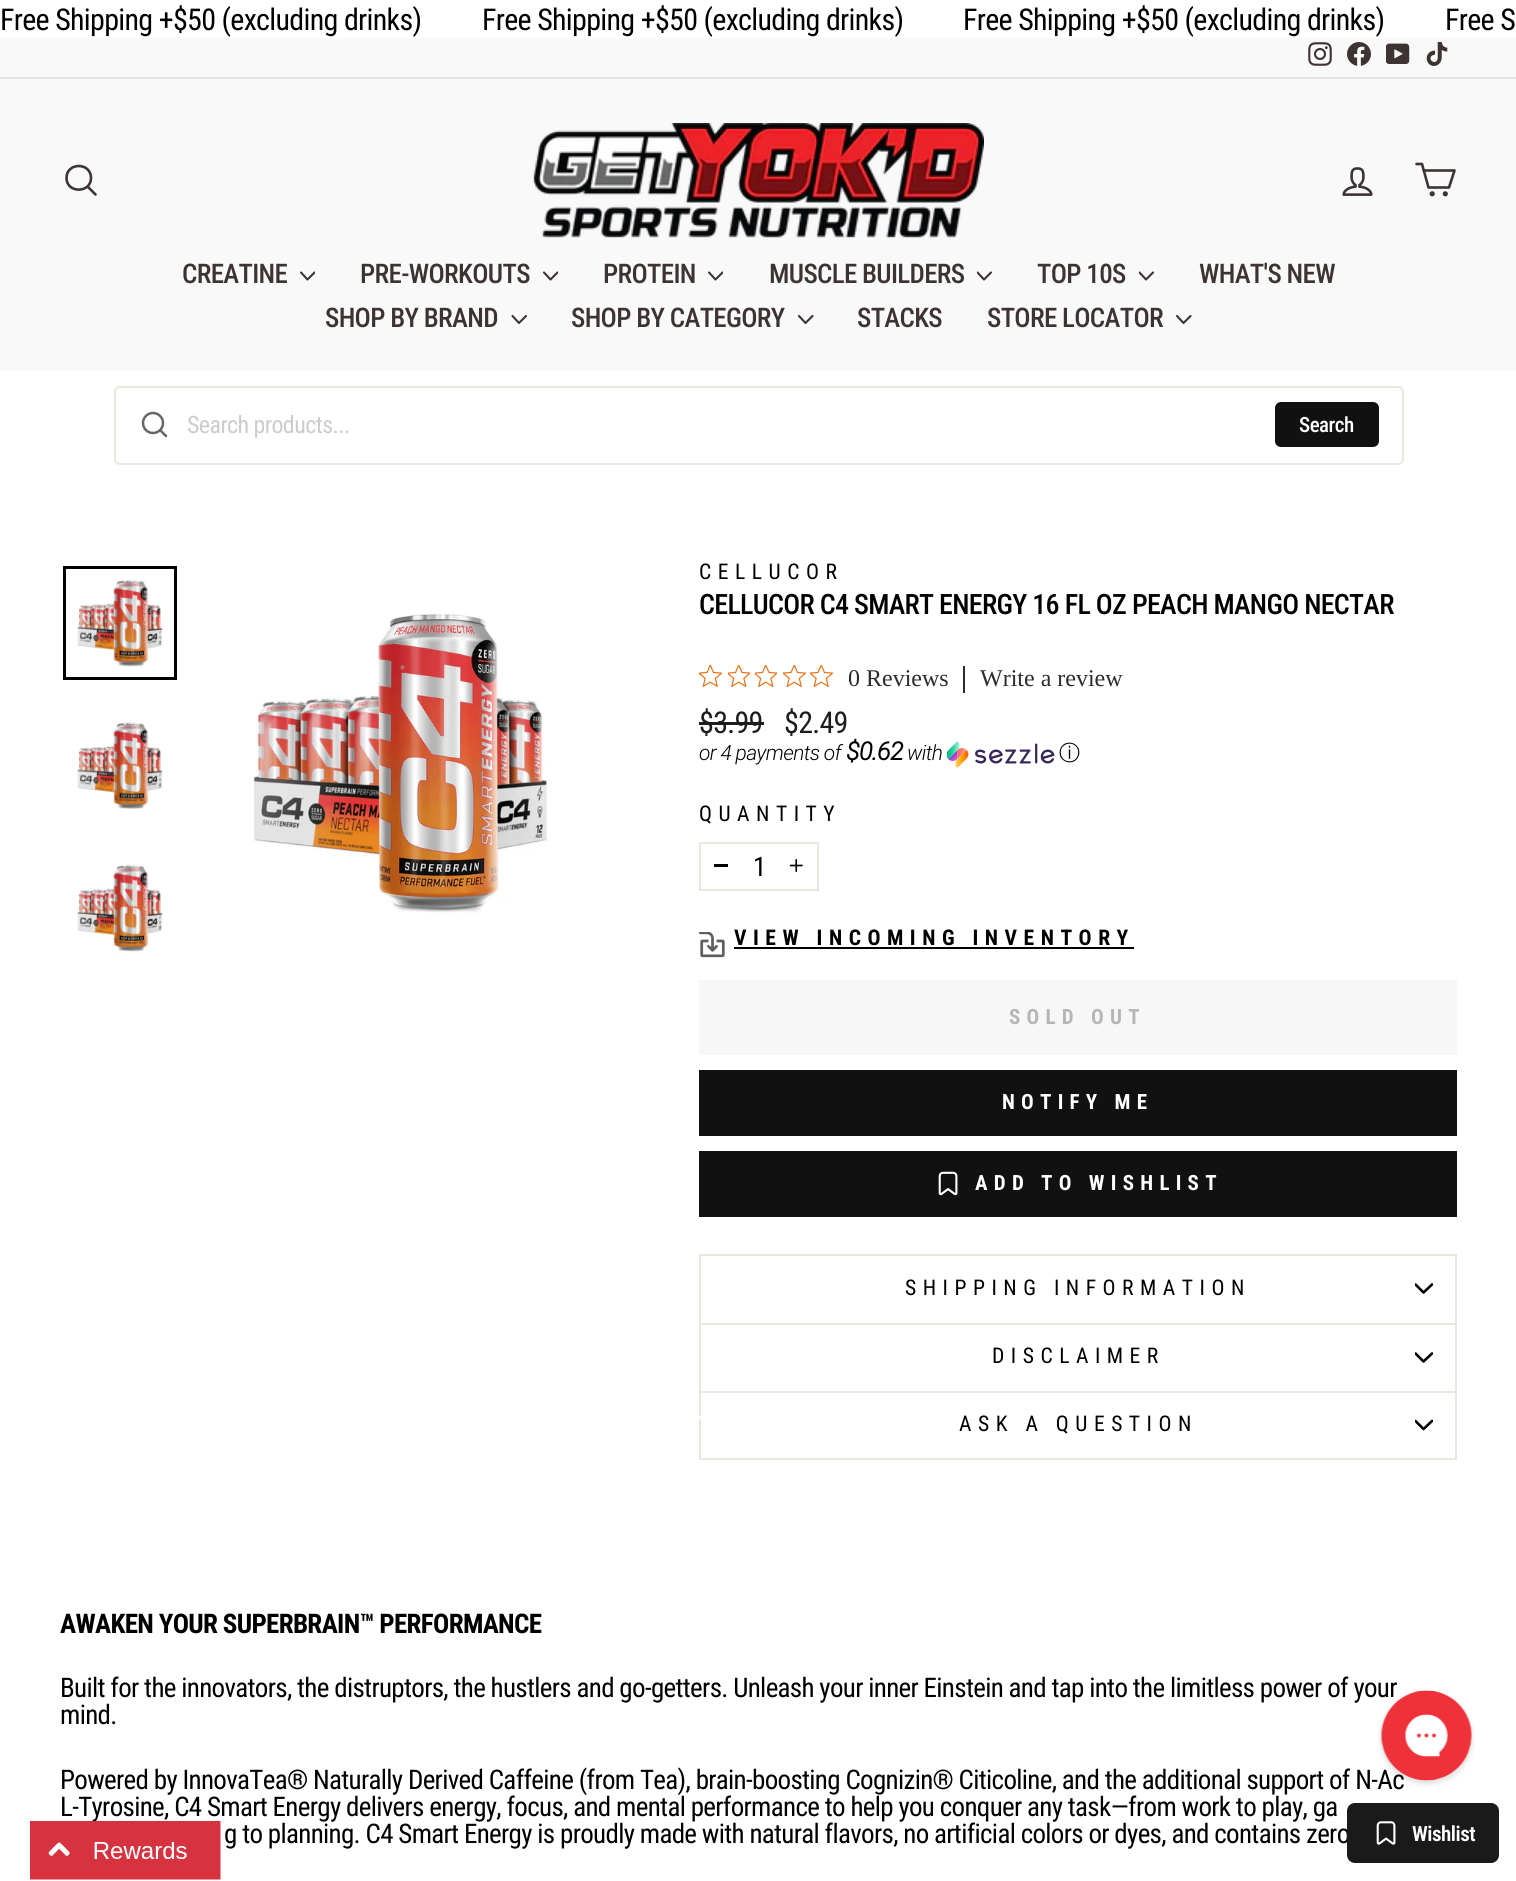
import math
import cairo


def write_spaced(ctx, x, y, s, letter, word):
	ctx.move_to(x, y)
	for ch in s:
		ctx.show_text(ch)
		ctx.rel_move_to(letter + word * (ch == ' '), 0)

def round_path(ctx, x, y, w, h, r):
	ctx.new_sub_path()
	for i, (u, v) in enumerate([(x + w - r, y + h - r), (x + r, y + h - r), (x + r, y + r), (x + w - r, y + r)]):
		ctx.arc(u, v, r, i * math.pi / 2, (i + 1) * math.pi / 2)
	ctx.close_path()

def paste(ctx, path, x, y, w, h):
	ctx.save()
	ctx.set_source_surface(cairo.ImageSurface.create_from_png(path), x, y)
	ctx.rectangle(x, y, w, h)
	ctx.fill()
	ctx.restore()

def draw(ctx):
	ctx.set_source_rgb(1, 1, 1)
	ctx.paint()
	ctx.select_font_face('Roboto Condensed')
	ctx.set_font_size(30)
	ctx.set_source_rgb(0, 0, 0)
	for x, y, s in [
		(0, 30, 'Free Shipping +$50 (excluding drinks)'),
		(482, 30, 'Free Shipping +$50 (excluding drinks)'),
		(963, 30, 'Free Shipping +$50 (excluding drinks)'),
		(1445, 30, 'Free S'),
	]:
		write_spaced(ctx, x, y, s, -0.68, 0)
	ctx.set_source_rgb(0.976, 0.976, 0.976)
	ctx.rectangle(0, 38, 1516, 39)
	ctx.fill()
	paste(ctx, 'media/1.png', 1308, 42, 24, 24)
	paste(ctx, 'media/2.png', 1347, 42, 24, 24)
	paste(ctx, 'media/3.png', 1386, 43, 24, 21)
	paste(ctx, 'media/4.png', 1426, 42, 22, 24)
	ctx.rectangle(0, 79, 1516, 292)
	ctx.fill()
	ctx.set_source_rgb(0.902, 0.898, 0.898)
	ctx.rectangle(0, 77, 1516, 2)
	ctx.fill()
	ctx.new_path()
	ctx.move_to(91, 178)
	ctx.curve_to(91, 193.5, 66.5, 193.5, 66.5, 178)
	ctx.curve_to(66.5, 162, 91, 162, 91, 178)
	ctx.close_path()
	ctx.move_to(95.5, 194.5)
	ctx.line_to(87.5, 186.5)
	ctx.set_source_rgb(0.243, 0.2, 0.2)
	ctx.set_line_width(2.6)
	ctx.set_line_cap(cairo.LINE_CAP_ROUND)
	ctx.set_line_join(cairo.LINE_JOIN_ROUND)
	ctx.stroke()
	paste(ctx, 'media/5.png', 533, 123, 451, 115)
	paste(ctx, 'media/6.png', 1342, 167, 31, 29)
	ctx.new_path()
	ctx.move_to(1423.5, 170.5)
	ctx.line_to(1454.5, 170.5)
	ctx.line_to(1449, 187.5)
	ctx.line_to(1428.5, 187.5)
	ctx.line_to(1422, 164)
	ctx.line_to(1416.5, 164)
	ctx.stroke()
	ctx.arc(1432.2, 193.8, 1.3, 0, 2 * math.pi)
	ctx.set_line_cap(cairo.LINE_CAP_BUTT)
	ctx.set_line_join(cairo.LINE_JOIN_MITER)
	ctx.stroke()
	ctx.arc(1445.3, 193.8, 1.3, 0, 2 * math.pi)
	ctx.stroke()
	ctx.select_font_face('Roboto Condensed Medium')
	ctx.set_font_size(27)
	write_spaced(ctx, 182, 283, 'CREATINE', -0.68, 0)
	ctx.save()
	ctx.rectangle(300, 269, 15, 15)
	ctx.clip()
	ctx.new_path()
	ctx.move_to(301, 272.5)
	ctx.line_to(307.5, 279.5)
	ctx.line_to(314.5, 272.5)
	ctx.set_line_width(2.1)
	ctx.set_line_cap(cairo.LINE_CAP_ROUND)
	ctx.set_line_join(cairo.LINE_JOIN_ROUND)
	ctx.stroke()
	ctx.restore()
	write_spaced(ctx, 360, 283, 'PRE-WORKOUTS', -0.68, 0)
	ctx.save()
	ctx.rectangle(543, 269, 15, 15)
	ctx.clip()
	ctx.new_path()
	ctx.move_to(544, 272.5)
	ctx.line_to(550.5, 279.5)
	ctx.line_to(557.5, 272.5)
	ctx.set_line_width(2.1)
	ctx.set_line_cap(cairo.LINE_CAP_ROUND)
	ctx.set_line_join(cairo.LINE_JOIN_ROUND)
	ctx.stroke()
	ctx.restore()
	write_spaced(ctx, 603, 283, 'PROTEIN', -0.68, 0)
	ctx.save()
	ctx.rectangle(708, 269, 15, 15)
	ctx.clip()
	ctx.new_path()
	ctx.move_to(709, 272.5)
	ctx.line_to(715.5, 279.5)
	ctx.line_to(722.5, 272.5)
	ctx.set_line_width(2.1)
	ctx.set_line_cap(cairo.LINE_CAP_ROUND)
	ctx.set_line_join(cairo.LINE_JOIN_ROUND)
	ctx.stroke()
	ctx.restore()
	write_spaced(ctx, 769, 283, 'MUSCLE BUILDERS', -0.68, 0)
	ctx.save()
	ctx.rectangle(977, 269, 15, 15)
	ctx.clip()
	ctx.new_path()
	ctx.move_to(977.5, 272.5)
	ctx.line_to(984, 279.5)
	ctx.line_to(991, 272.5)
	ctx.set_line_width(2.1)
	ctx.set_line_cap(cairo.LINE_CAP_ROUND)
	ctx.set_line_join(cairo.LINE_JOIN_ROUND)
	ctx.stroke()
	ctx.restore()
	write_spaced(ctx, 1037, 283, 'TOP 10S', -0.68, 0)
	ctx.save()
	ctx.rectangle(1139, 269, 15, 15)
	ctx.clip()
	ctx.new_path()
	ctx.move_to(1139.5, 272.5)
	ctx.line_to(1146, 279.5)
	ctx.line_to(1153, 272.5)
	ctx.set_line_width(2.1)
	ctx.set_line_cap(cairo.LINE_CAP_ROUND)
	ctx.set_line_join(cairo.LINE_JOIN_ROUND)
	ctx.stroke()
	ctx.restore()
	write_spaced(ctx, 1199, 283, 'WHAT\'S NEW', -0.68, 0)
	write_spaced(ctx, 325, 327, 'SHOP BY BRAND', -0.68, 0)
	ctx.new_path()
	ctx.move_to(512.5, 316)
	ctx.line_to(519, 323)
	ctx.line_to(526, 316)
	ctx.set_line_width(2.1)
	ctx.set_line_cap(cairo.LINE_CAP_ROUND)
	ctx.set_line_join(cairo.LINE_JOIN_ROUND)
	ctx.stroke()
	write_spaced(ctx, 571, 327, 'SHOP BY CATEGORY', -0.68, 0)
	ctx.new_path()
	ctx.move_to(799, 316)
	ctx.line_to(805.5, 323)
	ctx.line_to(812.5, 316)
	ctx.stroke()
	write_spaced(ctx, 857, 327, 'STACKS', -0.68, 0)
	write_spaced(ctx, 987, 327, 'STORE LOCATOR', -0.68, 0)
	ctx.new_path()
	ctx.move_to(1177, 316)
	ctx.line_to(1183.5, 323)
	ctx.line_to(1190.5, 316)
	ctx.stroke()
	round_path(ctx, 115, 387, 1288, 77, 5)
	ctx.set_source_rgb(0.91, 0.91, 0.882)
	ctx.set_line_width(2)
	ctx.set_line_cap(cairo.LINE_CAP_BUTT)
	ctx.set_line_join(cairo.LINE_JOIN_MITER)
	ctx.stroke()
	ctx.arc(153, 423, 10, 0, 2 * math.pi)
	ctx.set_source_rgb(0.4, 0.4, 0.4)
	ctx.set_line_width(2.5)
	ctx.stroke()
	ctx.new_path()
	ctx.move_to(166, 436)
	ctx.line_to(160.5, 430.5)
	ctx.set_line_cap(cairo.LINE_CAP_ROUND)
	ctx.set_line_join(cairo.LINE_JOIN_ROUND)
	ctx.stroke()
	ctx.select_font_face('Roboto Condensed')
	ctx.set_font_size(24)
	ctx.set_source_rgb(0.8, 0.8, 0.8)
	write_spaced(ctx, 187, 433, 'Search products...', -0.6, 0)
	ctx.set_source_rgb(0.067, 0.067, 0.067)
	round_path(ctx, 1275, 402, 104, 45, 6)
	ctx.fill()
	ctx.select_font_face('Roboto Condensed Medium')
	ctx.set_font_size(21)
	ctx.set_source_rgb(1, 1, 1)
	write_spaced(ctx, 1299, 432, 'Search', -0.5, 0)
	paste(ctx, 'media/7.png', 77, 579, 86, 88)
	ctx.rectangle(64.5, 567.5, 111, 111)
	ctx.set_source_rgb(0, 0, 0)
	ctx.set_line_width(3)
	ctx.set_line_cap(cairo.LINE_CAP_BUTT)
	ctx.set_line_join(cairo.LINE_JOIN_MITER)
	ctx.stroke()
	paste(ctx, 'media/8.png', 77, 722, 86, 87)
	paste(ctx, 'media/7.png', 77, 864, 86, 88)
	paste(ctx, 'media/9.png', 254, 614, 294, 299)
	ctx.select_font_face('Roboto Condensed')
	ctx.set_font_size(21.6)
	write_spaced(ctx, 699, 579, 'CELLUCOR', 6.5, 0)
	ctx.select_font_face('Roboto Condensed Medium')
	ctx.set_font_size(28.05)
	write_spaced(ctx, 699, 614, 'CELLUCOR C4 SMART ENERGY 16 FL OZ PEACH MANGO NECTAR', -0.7, 0)
	paste(ctx, 'media/10.png', 699, 665, 23, 22)
	paste(ctx, 'media/11.png', 728, 665, 22, 22)
	paste(ctx, 'media/11.png', 755, 665, 22, 22)
	paste(ctx, 'media/10.png', 783, 665, 23, 22)
	paste(ctx, 'media/10.png', 810, 665, 23, 22)
	ctx.select_font_face('Liberation Serif')
	ctx.set_font_size(24)
	ctx.set_source_rgb(0.173, 0.173, 0.173)
	ctx.move_to(848, 686)
	ctx.show_text('0 Reviews')
	ctx.rectangle(963, 666, 2, 27)
	ctx.fill()
	ctx.move_to(980, 686)
	ctx.show_text('Write a review')
	ctx.select_font_face('Roboto Condensed')
	ctx.set_font_size(30)
	ctx.set_source_rgb(0.11, 0.114, 0.114)
	write_spaced(ctx, 699, 733, '$3.99', -0.68, 0)
	ctx.rectangle(699, 722, 65, 3)
	ctx.fill()
	write_spaced(ctx, 784, 733, '$2.49', -0.68, 0)
	ctx.select_font_face('Roboto Light', cairo.FONT_SLANT_ITALIC)
	ctx.set_font_size(21)
	ctx.set_source_rgb(0, 0, 0)
	write_spaced(ctx, 699, 760, 'or 4 payments of', -0.68, 0)
	ctx.select_font_face('Roboto', cairo.FONT_SLANT_ITALIC, cairo.FONT_WEIGHT_BOLD)
	ctx.set_font_size(25)
	write_spaced(ctx, 846, 760, '$0.62', -0.68, 0)
	ctx.select_font_face('Roboto Light', cairo.FONT_SLANT_ITALIC)
	ctx.set_font_size(21)
	write_spaced(ctx, 907, 760, 'with', -0.68, 0)
	paste(ctx, 'media/12.png', 947, 741, 108, 27)
	ctx.select_font_face('WenQuanYi Zen Hei Medium')
	write_spaced(ctx, 1059, 760, 'ⓘ', -0.68, 0)
	ctx.select_font_face('Roboto Condensed')
	ctx.set_font_size(21.6)
	write_spaced(ctx, 699, 821, 'QUANTITY', 6.5, 0)
	ctx.rectangle(700, 843, 118, 47)
	ctx.set_source_rgb(0.91, 0.91, 0.882)
	ctx.set_line_width(2)
	ctx.stroke()
	ctx.set_source_rgb(0, 0, 0)
	ctx.rectangle(714, 864, 14, 3)
	ctx.fill()
	ctx.set_font_size(27)
	write_spaced(ctx, 753, 876, '1', -0.68, 0)
	paste(ctx, 'media/13.png', 789, 859, 14, 13)
	paste(ctx, 'media/14.png', 699, 932, 26, 26)
	ctx.select_font_face('Roboto Condensed', cairo.FONT_SLANT_NORMAL, cairo.FONT_WEIGHT_BOLD)
	ctx.set_font_size(21.6)
	write_spaced(ctx, 734, 945, 'VIEW INCOMING INVENTORY', 6.5, 0)
	ctx.rectangle(734, 947, 400, 2)
	ctx.fill()
	ctx.set_source_rgb(0.965, 0.965, 0.965)
	ctx.rectangle(699, 980, 758, 75)
	ctx.fill()
	ctx.set_font_size(21)
	ctx.set_source_rgb(0.714, 0.714, 0.714)
	write_spaced(ctx, 1009, 1024, 'SOLD OUT', 6.25, 0)
	ctx.set_source_rgb(0.067, 0.067, 0.067)
	ctx.rectangle(699, 1070, 758, 66)
	ctx.fill()
	ctx.set_source_rgb(1, 1, 1)
	write_spaced(ctx, 1002, 1109, 'NOTIFY ME', 6.25, 0)
	ctx.set_source_rgb(0.067, 0.067, 0.067)
	ctx.rectangle(699, 1151, 758, 66)
	ctx.fill()
	paste(ctx, 'media/15.png', 938, 1171, 20, 25)
	ctx.set_source_rgb(1, 1, 1)
	write_spaced(ctx, 975, 1190, 'ADD TO WISHLIST', 6.25, 0)
	ctx.set_source_rgb(0.91, 0.91, 0.882)
	ctx.rectangle(699, 1323, 758, 2)
	ctx.rectangle(699, 1254, 758, 2)
	ctx.rectangle(1455, 1254, 2, 69)
	ctx.rectangle(699, 1254, 2, 69)
	ctx.fill()
	ctx.select_font_face('Roboto Condensed')
	ctx.set_font_size(21.6)
	ctx.set_source_rgb(0, 0, 0)
	write_spaced(ctx, 905, 1295, 'SHIPPING INFORMATION', 6.5, 0)
	ctx.save()
	ctx.rectangle(1415, 1280, 18, 18)
	ctx.clip()
	ctx.new_path()
	ctx.move_to(1415.5, 1284.5)
	ctx.line_to(1423.5, 1292.5)
	ctx.line_to(1432, 1284.5)
	ctx.set_line_width(2.6)
	ctx.set_line_cap(cairo.LINE_CAP_ROUND)
	ctx.set_line_join(cairo.LINE_JOIN_ROUND)
	ctx.stroke()
	ctx.restore()
	ctx.set_source_rgb(0.91, 0.91, 0.882)
	ctx.rectangle(699, 1391, 758, 2)
	ctx.rectangle(1455, 1325, 2, 66)
	ctx.rectangle(699, 1325, 2, 66)
	ctx.fill()
	ctx.set_source_rgb(0, 0, 0)
	write_spaced(ctx, 992, 1363, 'DISCLAIMER', 6.5, 0)
	ctx.save()
	ctx.rectangle(1415, 1349, 18, 18)
	ctx.clip()
	ctx.new_path()
	ctx.move_to(1415.5, 1353.5)
	ctx.line_to(1423.5, 1361.5)
	ctx.line_to(1432, 1353.5)
	ctx.set_line_width(2.6)
	ctx.set_line_cap(cairo.LINE_CAP_ROUND)
	ctx.set_line_join(cairo.LINE_JOIN_ROUND)
	ctx.stroke()
	ctx.restore()
	ctx.set_source_rgb(0.91, 0.91, 0.882)
	ctx.rectangle(699, 1458, 758, 2)
	ctx.rectangle(1455, 1392, 2, 66)
	ctx.rectangle(699, 1392, 2, 66)
	ctx.fill()
	ctx.set_source_rgb(0, 0, 0)
	write_spaced(ctx, 959, 1431, 'ASK A QUESTION', 6.5, 0)
	ctx.save()
	ctx.rectangle(1415, 1416, 18, 18)
	ctx.clip()
	ctx.new_path()
	ctx.move_to(1415.5, 1421)
	ctx.line_to(1423.5, 1429)
	ctx.line_to(1432, 1421)
	ctx.set_line_width(2.6)
	ctx.set_line_cap(cairo.LINE_CAP_ROUND)
	ctx.set_line_join(cairo.LINE_JOIN_ROUND)
	ctx.stroke()
	ctx.restore()
	ctx.select_font_face('Roboto Condensed', cairo.FONT_SLANT_NORMAL, cairo.FONT_WEIGHT_BOLD)
	ctx.set_font_size(27)
	write_spaced(ctx, 60, 1633, 'AWAKEN YOUR SUPERBRAIN™ PERFORMANCE', -0.68, 0)
	ctx.select_font_face('Roboto Condensed')
	for x, y, s in [
		(60, 1697, 'Built for the innovators, the distruptors, the hustlers and go-getters. Unleash your inner Einstein and tap into the limitless power of your'),
		(60, 1724, 'mind.'),
		(60, 1789, 'Powered by InnovaTea® Naturally Derived Caffeine (from Tea), brain-boosting Cognizin® Citicoline, and the additional support of N-Ac'),
		(60, 1816, 'L-Tyrosine, C4 Smart Energy delivers energy, focus, and mental performance to help you conquer any task—from work to play, ga'),
		(224, 1843, 'g to planning. C4 Smart Energy is proudly made with natural flavors, no artificial colors or dyes, and contains zero'),
	]:
		write_spaced(ctx, x, y, s, -0.68, 0)
	ctx.set_source_rgb(1, 1, 1)
	write_spaced(ctx, 696, 1419, '.', -0.68, 0)
	ctx.set_source_rgb(0.102, 0.102, 0.102)
	round_path(ctx, 1347, 1803, 152, 60, 8)
	ctx.fill()
	paste(ctx, 'media/16.png', 1376, 1821, 20, 24)
	ctx.select_font_face('Roboto Condensed SemiBold')
	ctx.set_font_size(21)
	ctx.set_source_rgb(1, 1, 1)
	write_spaced(ctx, 1412, 1841, 'Wishlist', -0.5, 0)
	paste(ctx, 'media/17.png', 1378, 1690, 97, 97)
	paste(ctx, 'media/18.png', 30, 1821, 191, 59)


surface = cairo.ImageSurface(cairo.FORMAT_RGB24, 1516, 1881)
ctx = cairo.Context(surface)
options = cairo.FontOptions()
options.set_hint_metrics(cairo.HINT_METRICS_OFF)
options.set_hint_style(cairo.HINT_STYLE_NONE)
ctx.set_font_options(options)
ctx.set_miter_limit(4)
draw(ctx)
surface.write_to_png('image.png')
